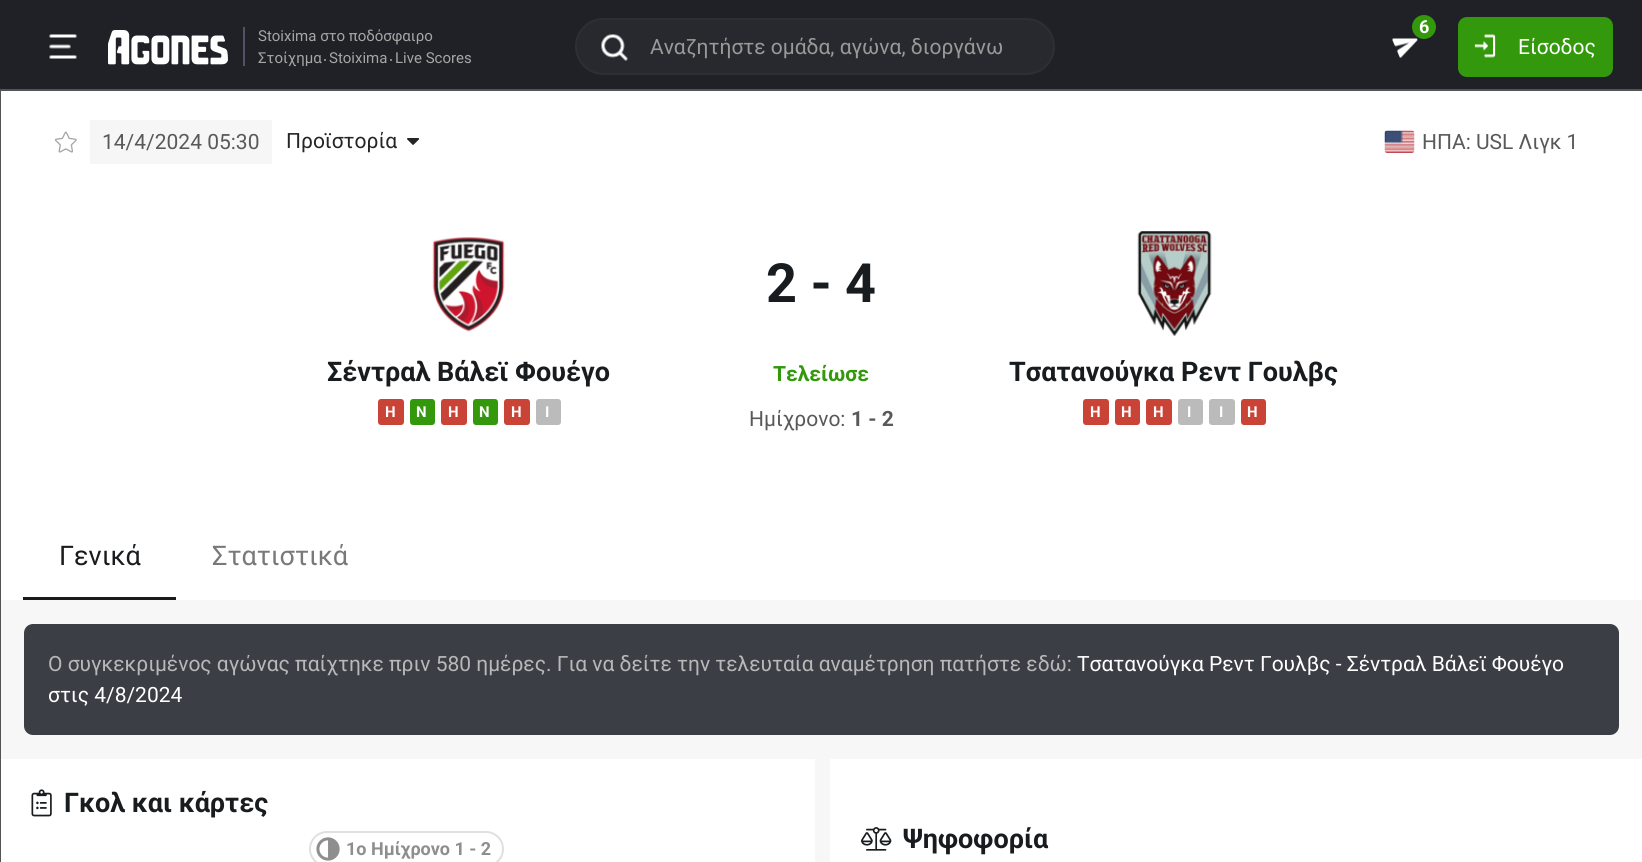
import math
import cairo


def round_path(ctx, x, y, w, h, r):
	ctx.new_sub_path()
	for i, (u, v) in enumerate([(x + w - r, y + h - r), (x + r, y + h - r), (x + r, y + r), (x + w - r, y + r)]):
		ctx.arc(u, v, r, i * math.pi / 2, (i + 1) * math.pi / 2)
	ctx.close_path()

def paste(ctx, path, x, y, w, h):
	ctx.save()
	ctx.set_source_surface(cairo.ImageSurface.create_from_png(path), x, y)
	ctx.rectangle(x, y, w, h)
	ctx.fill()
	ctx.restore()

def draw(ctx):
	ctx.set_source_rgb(0.965, 0.965, 0.965)
	ctx.paint()
	ctx.set_source_rgb(0.122, 0.129, 0.149)
	ctx.rectangle(0, 0, 1642, 89)
	ctx.fill()
	ctx.set_source_rgb(0.318, 0.325, 0.337)
	ctx.rectangle(0, 89, 1642, 2)
	ctx.fill()
	paste(ctx, 'media/1.png', 49, 34, 28, 25)
	paste(ctx, 'media/2.png', 108, 30, 120, 35)
	ctx.set_source_rgb(0.318, 0.325, 0.396)
	ctx.rectangle(243, 27, 2, 39)
	ctx.fill()
	ctx.select_font_face('Roboto')
	ctx.set_font_size(15)
	ctx.set_source_rgb(0.651, 0.651, 0.651)
	ctx.move_to(258, 41)
	ctx.show_text('Stoixima στο ποδόσφαιρο')
	ctx.move_to(258, 63)
	ctx.show_text('Στοίχημα')
	ctx.new_path()
	ctx.arc(325, 60, 1, 0, 2 * math.pi)
	ctx.fill()
	ctx.move_to(329, 63)
	ctx.show_text('Stoixima')
	ctx.new_path()
	ctx.arc(391, 60, 1, 0, 2 * math.pi)
	ctx.fill()
	ctx.move_to(395, 63)
	ctx.show_text('Live Scores')
	ctx.set_source_rgb(0.153, 0.161, 0.184)
	round_path(ctx, 576, 19, 478, 55, 27.5)
	ctx.fill_preserve()
	ctx.set_source_rgb(0.173, 0.184, 0.204)
	ctx.stroke()
	paste(ctx, 'media/3.png', 601, 34, 27, 27)
	ctx.set_font_size(21)
	ctx.set_source_rgb(0.6, 0.6, 0.6)
	ctx.move_to(650, 54)
	ctx.show_text('Αναζητήστε ομάδα, αγώνα, διοργάνω')
	paste(ctx, 'media/4.png', 1392, 38, 26, 20)
	ctx.set_source_rgb(0.2, 0.596, 0.047)
	ctx.arc(1424, 27, 12, 0, 2 * math.pi)
	ctx.fill()
	ctx.select_font_face('Roboto', cairo.FONT_SLANT_NORMAL, cairo.FONT_WEIGHT_BOLD)
	ctx.set_font_size(18)
	ctx.set_source_rgb(1, 1, 1)
	ctx.move_to(1419, 33)
	ctx.show_text('6')
	ctx.set_source_rgb(0.2, 0.596, 0.047)
	round_path(ctx, 1458, 17, 155, 60, 9)
	ctx.fill()
	paste(ctx, 'media/5.png', 1474, 34, 22, 24)
	ctx.select_font_face('Roboto')
	ctx.set_font_size(21)
	ctx.set_source_rgb(1, 1, 1)
	ctx.move_to(1518, 54)
	ctx.show_text('Είσοδος')
	ctx.set_source_rgb(0.318, 0.325, 0.337)
	ctx.rectangle(0, 90, 1, 772)
	ctx.fill()
	ctx.set_source_rgb(1, 1, 1)
	ctx.rectangle(1, 91, 1641, 509)
	ctx.fill()
	paste(ctx, 'media/6.png', 54, 131, 23, 22)
	ctx.set_source_rgb(0.961, 0.961, 0.961)
	ctx.rectangle(90, 120, 182, 44)
	ctx.fill()
	ctx.set_source_rgb(0.349, 0.349, 0.349)
	ctx.move_to(102, 149)
	ctx.show_text('14/4/2024 05:30')
	ctx.set_source_rgb(0.145, 0.145, 0.145)
	ctx.move_to(286, 148)
	ctx.show_text('Προϊστορία')
	paste(ctx, 'media/7.png', 407, 138, 13, 7)
	paste(ctx, 'media/8.png', 1384, 130, 31, 23)
	ctx.set_source_rgb(0.349, 0.349, 0.349)
	ctx.move_to(1422, 149)
	ctx.show_text('ΗΠΑ: USL Λιγκ 1')
	paste(ctx, 'media/9.png', 432, 237, 73, 95)
	ctx.select_font_face('Roboto', cairo.FONT_SLANT_NORMAL, cairo.FONT_WEIGHT_BOLD)
	ctx.set_font_size(27)
	ctx.set_source_rgb(0.098, 0.11, 0.122)
	ctx.move_to(327, 381)
	ctx.show_text('Σέντραλ Βάλεϊ Φουέγο')
	ctx.set_source_rgb(0.792, 0.263, 0.216)
	round_path(ctx, 378, 399, 26, 26, 3)
	ctx.fill()
	ctx.set_font_size(15)
	ctx.set_source_rgb(1, 1, 1)
	ctx.move_to(385, 417)
	ctx.show_text('H')
	ctx.set_source_rgb(0.2, 0.596, 0.047)
	round_path(ctx, 410, 399, 25, 26, 3)
	ctx.fill()
	ctx.set_source_rgb(1, 1, 1)
	ctx.move_to(416, 417)
	ctx.show_text('N')
	ctx.set_source_rgb(0.792, 0.263, 0.216)
	round_path(ctx, 441, 399, 26, 26, 3)
	ctx.fill()
	ctx.set_source_rgb(1, 1, 1)
	ctx.move_to(448, 417)
	ctx.show_text('H')
	ctx.set_source_rgb(0.2, 0.596, 0.047)
	round_path(ctx, 473, 399, 25, 26, 3)
	ctx.fill()
	ctx.set_source_rgb(1, 1, 1)
	ctx.move_to(479, 417)
	ctx.show_text('N')
	ctx.set_source_rgb(0.792, 0.263, 0.216)
	round_path(ctx, 504, 399, 26, 26, 3)
	ctx.fill()
	ctx.set_source_rgb(1, 1, 1)
	ctx.move_to(511, 417)
	ctx.show_text('H')
	ctx.set_source_rgb(0.733, 0.733, 0.733)
	round_path(ctx, 536, 399, 25, 26, 3)
	ctx.fill()
	ctx.set_source_rgb(1, 1, 1)
	ctx.move_to(545, 417)
	ctx.show_text('I')
	ctx.set_font_size(54)
	ctx.set_source_rgb(0.098, 0.11, 0.122)
	ctx.move_to(766, 302)
	ctx.show_text('2 - 4')
	ctx.set_font_size(21)
	ctx.set_source_rgb(0.2, 0.596, 0.047)
	ctx.move_to(773, 381)
	ctx.show_text('Τελείωσε')
	ctx.select_font_face('Roboto')
	ctx.set_source_rgb(0.349, 0.349, 0.349)
	ctx.move_to(749, 426)
	ctx.show_text('Ημίχρονο:')
	ctx.select_font_face('Roboto', cairo.FONT_SLANT_NORMAL, cairo.FONT_WEIGHT_BOLD)
	ctx.move_to(851, 426)
	ctx.show_text('1 - 2')
	paste(ctx, 'media/10.png', 1137, 231, 75, 105)
	ctx.set_font_size(27)
	ctx.set_source_rgb(0.098, 0.11, 0.122)
	ctx.move_to(1009, 381)
	ctx.show_text('Τσατανούγκα Ρεντ Γουλβς')
	ctx.set_source_rgb(0.792, 0.263, 0.216)
	round_path(ctx, 1083, 399, 26, 26, 3)
	ctx.fill()
	ctx.set_font_size(15)
	ctx.set_source_rgb(1, 1, 1)
	ctx.move_to(1090, 417)
	ctx.show_text('H')
	ctx.set_source_rgb(0.792, 0.263, 0.216)
	round_path(ctx, 1115, 399, 25, 26, 3)
	ctx.fill()
	ctx.set_source_rgb(1, 1, 1)
	ctx.move_to(1121, 417)
	ctx.show_text('H')
	ctx.set_source_rgb(0.792, 0.263, 0.216)
	round_path(ctx, 1146, 399, 26, 26, 3)
	ctx.fill()
	ctx.set_source_rgb(1, 1, 1)
	ctx.move_to(1153, 417)
	ctx.show_text('H')
	ctx.set_source_rgb(0.733, 0.733, 0.733)
	round_path(ctx, 1178, 399, 25, 26, 3)
	ctx.fill()
	ctx.set_source_rgb(1, 1, 1)
	ctx.move_to(1187, 417)
	ctx.show_text('I')
	ctx.set_source_rgb(0.733, 0.733, 0.733)
	round_path(ctx, 1209, 399, 26, 26, 3)
	ctx.fill()
	ctx.set_source_rgb(1, 1, 1)
	ctx.move_to(1219, 417)
	ctx.show_text('I')
	ctx.set_source_rgb(0.792, 0.263, 0.216)
	round_path(ctx, 1241, 399, 25, 26, 3)
	ctx.fill()
	ctx.set_source_rgb(1, 1, 1)
	ctx.move_to(1247, 417)
	ctx.show_text('H')
	ctx.select_font_face('Roboto')
	ctx.set_font_size(27)
	ctx.set_source_rgb(0.098, 0.11, 0.122)
	ctx.move_to(59, 565)
	ctx.show_text('Γενικά')
	ctx.rectangle(23, 597, 153, 3)
	ctx.fill()
	ctx.set_source_rgb(0.475, 0.475, 0.475)
	ctx.move_to(212, 565)
	ctx.show_text('Στατιστικά')
	ctx.set_source_rgb(0.235, 0.243, 0.275)
	round_path(ctx, 24, 624, 1595, 111, 9)
	ctx.fill()
	ctx.set_font_size(21)
	ctx.set_source_rgb(0.722, 0.722, 0.722)
	ctx.move_to(48, 671)
	ctx.show_text('Ο συγκεκριμένος αγώνας παίχτηκε πριν 580 ημέρες. Για να δείτε την τελευταία αναμέτρηση πατήστε εδώ:')
	ctx.set_source_rgb(1, 1, 1)
	ctx.move_to(1077, 671)
	ctx.show_text('Τσατανούγκα Ρεντ Γουλβς - Σέντραλ Βάλεϊ Φουέγο')
	ctx.move_to(48, 702)
	ctx.show_text('στις 4/8/2024')
	ctx.rectangle(1, 759, 814, 103)
	ctx.fill()
	paste(ctx, 'media/11.png', 31, 789, 21, 28)
	ctx.select_font_face('Roboto', cairo.FONT_SLANT_NORMAL, cairo.FONT_WEIGHT_BOLD)
	ctx.set_font_size(27)
	ctx.set_source_rgb(0.098, 0.11, 0.122)
	ctx.move_to(64, 812)
	ctx.show_text('Γκολ και κάρτες')
	round_path(ctx, 310, 832, 193, 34, 17)
	ctx.set_source_rgb(0.878, 0.878, 0.878)
	ctx.stroke()
	paste(ctx, 'media/12.png', 316, 837, 24, 24)
	ctx.set_font_size(18)
	ctx.set_source_rgb(0.557, 0.557, 0.557)
	ctx.move_to(346, 855)
	ctx.show_text('1ο Ημίχρονο 1 - 2')
	ctx.set_source_rgb(1, 1, 1)
	ctx.rectangle(830, 759, 812, 103)
	ctx.fill()
	paste(ctx, 'media/13.png', 861, 827, 31, 24)
	ctx.set_font_size(27)
	ctx.set_source_rgb(0.098, 0.11, 0.122)
	ctx.move_to(903, 848)
	ctx.show_text('Ψηφοφορία')


surface = cairo.ImageSurface(cairo.FORMAT_RGB24, 1642, 862)
ctx = cairo.Context(surface)
options = cairo.FontOptions()
options.set_hint_metrics(cairo.HINT_METRICS_OFF)
options.set_hint_style(cairo.HINT_STYLE_NONE)
ctx.set_font_options(options)
ctx.set_miter_limit(4)
draw(ctx)
surface.write_to_png('image.png')
